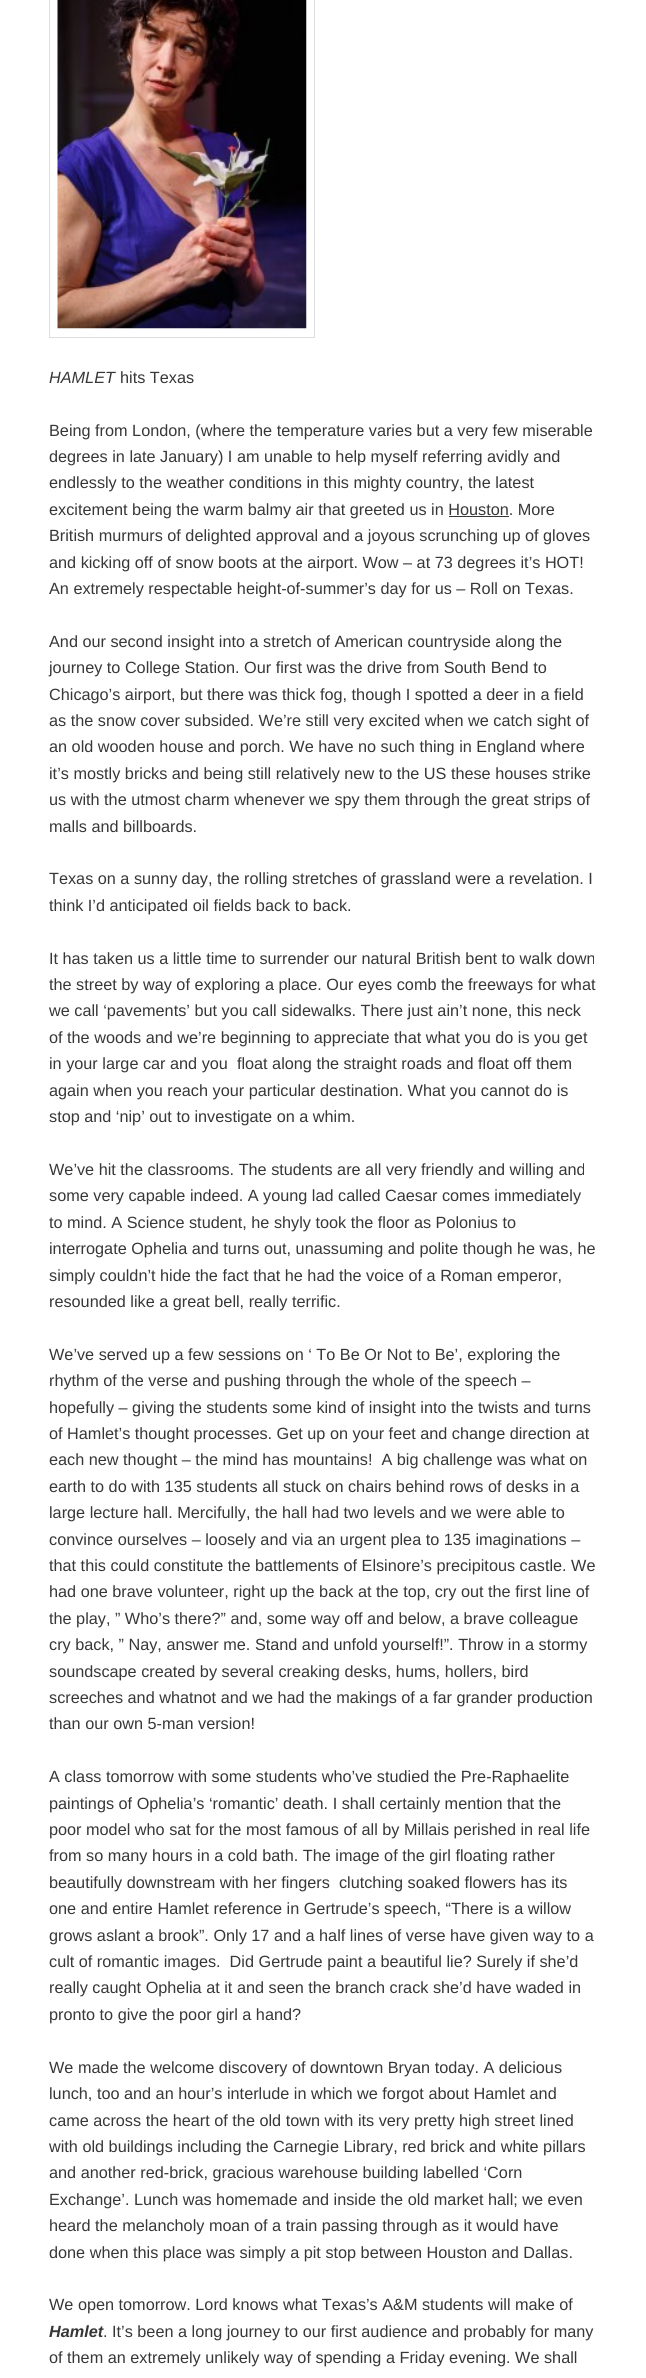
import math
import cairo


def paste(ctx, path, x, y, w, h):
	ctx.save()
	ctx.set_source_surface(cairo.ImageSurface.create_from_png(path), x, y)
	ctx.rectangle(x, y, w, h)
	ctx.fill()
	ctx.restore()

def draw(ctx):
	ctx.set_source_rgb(1, 1, 1)
	ctx.paint()
	ctx.rectangle(49.5, -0.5, 265, 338)
	ctx.set_source_rgb(0.867, 0.867, 0.867)
	ctx.set_line_width(1)
	ctx.stroke()
	paste(ctx, 'media/1.png', 57, 0, 250, 329)
	ctx.select_font_face('Liberation Sans', cairo.FONT_SLANT_ITALIC)
	ctx.set_font_size(16.25)
	ctx.set_source_rgb(0.216, 0.216, 0.216)
	ctx.move_to(49, 383)
	ctx.show_text('HAMLET')
	ctx.select_font_face('Liberation Sans')
	for x, y, s in [
		(120, 383, 'hits Texas'),
		(49, 436, 'Being from London, (where the temperature varies but a very few miserable'),
		(49, 462, 'degrees in late January) I am unable to help myself referring avidly and'),
		(49, 488, 'endlessly to the weather conditions in this mighty country, the latest'),
		(49, 515, 'excitement being the warm balmy air that greeted us in Houston. More'),
	]:
		ctx.move_to(x, y)
		ctx.show_text(s)
	ctx.rectangle(449, 516, 60, 1)
	ctx.fill()
	for x, y, s in [
		(49, 541, 'British murmurs of delighted approval and a joyous scrunching up of gloves'),
		(49, 568, 'and kicking off of snow boots at the airport. Wow – at 73 degrees it’s HOT!'),
		(49, 594, 'An extremely respectable height-of-summer’s day for us – Roll on Texas.'),
		(49, 647, 'And our second insight into a stretch of American countryside along the'),
		(49, 673, 'journey to College Station. Our first was the drive from South Bend to'),
		(49, 700, 'Chicago’s airport, but there was thick fog, though I spotted a deer in a field'),
		(49, 726, 'as the snow cover subsided. We’re still very excited when we catch sight of'),
		(49, 752, 'an old wooden house and porch. We have no such thing in England where'),
		(49, 779, 'it’s mostly bricks and being still relatively new to the US these houses strike'),
		(49, 805, 'us with the utmost charm whenever we spy them through the great strips of'),
		(49, 832, 'malls and billboards.'),
		(49, 884, 'Texas on a sunny day, the rolling stretches of grassland were a revelation. I'),
		(49, 911, 'think I’d anticipated oil fields back to back.'),
		(49, 964, 'It has taken us a little time to surrender our natural British bent to walk down'),
		(49, 990, 'the street by way of exploring a place. Our eyes comb the freeways for what'),
		(49, 1016, 'we call ‘pavements’ but you call sidewalks. There just ain’t none, this neck'),
		(49, 1043, 'of the woods and we’re beginning to appreciate that what you do is you get'),
		(49, 1069, 'in your large car and you  float along the straight roads and float off them'),
		(49, 1096, 'again when you reach your particular destination. What you cannot do is'),
		(49, 1122, 'stop and ‘nip’ out to investigate on a whim.'),
		(49, 1175, 'We’ve hit the classrooms. The students are all very friendly and willing and'),
		(49, 1201, 'some very capable indeed. A young lad called Caesar comes immediately'),
		(49, 1228, 'to mind. A Science student, he shyly took the floor as Polonius to'),
		(49, 1254, 'interrogate Ophelia and turns out, unassuming and polite though he was, he'),
		(49, 1281, 'simply couldn’t hide the fact that he had the voice of a Roman emperor,'),
		(49, 1307, 'resounded like a great bell, really terrific.'),
		(49, 1360, 'We’ve served up a few sessions on ‘ To Be Or Not to Be’, exploring the'),
		(49, 1386, 'rhythm of the verse and pushing through the whole of the speech –'),
		(49, 1413, 'hopefully – giving the students some kind of insight into the twists and turns'),
		(49, 1439, 'of Hamlet’s thought processes. Get up on your feet and change direction at'),
		(49, 1465, 'each new thought – the mind has mountains!  A big challenge was what on'),
		(49, 1492, 'earth to do with 135 students all stuck on chairs behind rows of desks in a'),
		(49, 1518, 'large lecture hall. Mercifully, the hall had two levels and we were able to'),
		(49, 1545, 'convince ourselves – loosely and via an urgent plea to 135 imaginations –'),
		(49, 1571, 'that this could constitute the battlements of Elsinore’s precipitous castle. We'),
		(49, 1597, 'had one brave volunteer, right up the back at the top, cry out the first line of'),
		(49, 1624, 'the play, ” Who’s there?” and, some way off and below, a brave colleague'),
		(49, 1650, 'cry back, ” Nay, answer me. Stand and unfold yourself!”. Throw in a stormy'),
		(49, 1677, 'soundscape created by several creaking desks, hums, hollers, bird'),
		(49, 1703, 'screeches and whatnot and we had the makings of a far grander production'),
		(49, 1729, 'than our own 5-man version!'),
		(49, 1782, 'A class tomorrow with some students who’ve studied the Pre-Raphaelite'),
		(49, 1809, 'paintings of Ophelia’s ‘romantic’ death. I shall certainly mention that the'),
		(49, 1835, 'poor model who sat for the most famous of all by Millais perished in real life'),
		(49, 1861, 'from so many hours in a cold bath. The image of the girl floating rather'),
		(49, 1888, 'beautifully downstream with her fingers  clutching soaked flowers has its'),
		(49, 1914, 'one and entire Hamlet reference in Gertrude’s speech, “There is a willow'),
		(49, 1941, 'grows aslant a brook”. Only 17 and a half lines of verse have given way to a'),
		(49, 1967, 'cult of romantic images.  Did Gertrude paint a beautiful lie? Surely if she’d'),
		(49, 1993, 'really caught Ophelia at it and seen the branch crack she’d have waded in'),
		(49, 2020, 'pronto to give the poor girl a hand?'),
		(49, 2073, 'We made the welcome discovery of downtown Bryan today. A delicious'),
		(49, 2099, 'lunch, too and an hour’s interlude in which we forgot about Hamlet and'),
		(49, 2126, 'came across the heart of the old town with its very pretty high street lined'),
		(49, 2152, 'with old buildings including the Carnegie Library, red brick and white pillars'),
		(49, 2178, 'and another red-brick, gracious warehouse building labelled ‘Corn'),
		(49, 2205, 'Exchange’. Lunch was homemade and inside the old market hall; we even'),
		(49, 2231, 'heard the melancholy moan of a train passing through as it would have'),
		(49, 2258, 'done when this place was simply a pit stop between Houston and Dallas.'),
		(49, 2310, 'We open tomorrow. Lord knows what Texas’s A&M students will make of'),
	]:
		ctx.move_to(x, y)
		ctx.show_text(s)
	ctx.select_font_face('Liberation Sans', cairo.FONT_SLANT_ITALIC, cairo.FONT_WEIGHT_BOLD)
	ctx.move_to(49, 2337)
	ctx.show_text('Hamlet')
	ctx.select_font_face('Liberation Sans')
	ctx.move_to(103, 2337)
	ctx.show_text('. It’s been a long journey to our first audience and probably for many')
	ctx.move_to(49, 2363)
	ctx.show_text('of them an extremely unlikely way of spending a Friday evening. We shall')


surface = cairo.ImageSurface(cairo.FORMAT_RGB24, 646, 2378)
ctx = cairo.Context(surface)
options = cairo.FontOptions()
options.set_hint_metrics(cairo.HINT_METRICS_OFF)
options.set_hint_style(cairo.HINT_STYLE_NONE)
ctx.set_font_options(options)
ctx.set_miter_limit(4)
draw(ctx)
surface.write_to_png('image.png')
